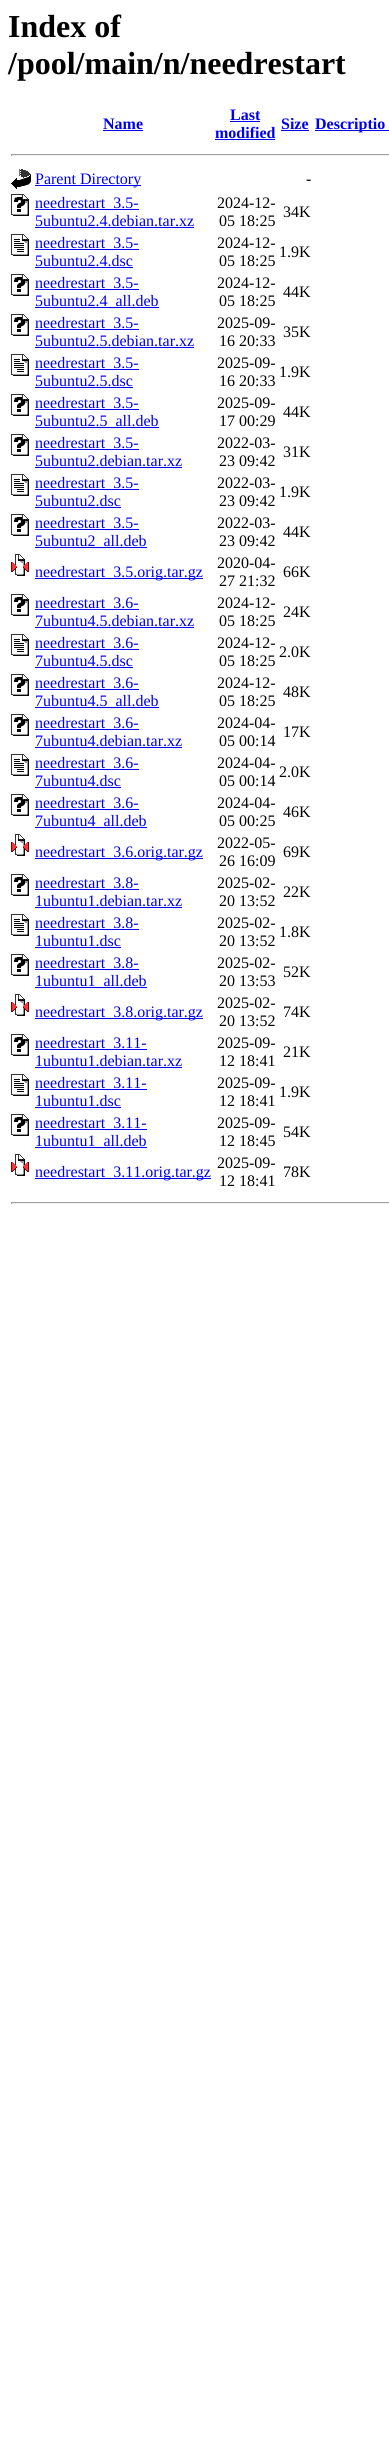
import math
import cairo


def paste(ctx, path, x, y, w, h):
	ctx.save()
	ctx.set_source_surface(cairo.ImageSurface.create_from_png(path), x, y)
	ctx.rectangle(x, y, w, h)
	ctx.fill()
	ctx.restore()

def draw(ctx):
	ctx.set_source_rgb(1, 1, 1)
	ctx.paint()
	ctx.select_font_face('Liberation Serif', cairo.FONT_SLANT_NORMAL, cairo.FONT_WEIGHT_BOLD)
	ctx.set_font_size(32)
	ctx.set_source_rgb(0, 0, 0)
	ctx.move_to(8, 37)
	ctx.show_text('Index of')
	ctx.move_to(8, 74)
	ctx.show_text('/pool/main/n/needrestart')
	ctx.set_font_size(16)
	ctx.set_source_rgb(0, 0, 0.933)
	ctx.move_to(103, 129)
	ctx.show_text('Name')
	ctx.rectangle(103, 130, 40, 1)
	ctx.fill()
	ctx.move_to(230, 120)
	ctx.show_text('Last')
	ctx.rectangle(230, 121, 30, 1)
	ctx.fill()
	ctx.move_to(215, 138)
	ctx.show_text('modified')
	ctx.rectangle(215, 139, 60, 1)
	ctx.fill()
	ctx.move_to(281, 129)
	ctx.show_text('Size')
	ctx.rectangle(281, 130, 28, 1)
	ctx.fill()
	ctx.rectangle(315, 130, 74, 1)
	ctx.fill()
	ctx.move_to(315, 129)
	ctx.show_text('Descriptio')
	ctx.set_source_rgb(0.624, 0.624, 0.624)
	ctx.rectangle(11, 154, 378, 1)
	ctx.fill()
	ctx.set_source_rgb(0.933, 0.933, 0.933)
	ctx.rectangle(11, 155, 378, 1)
	ctx.fill()
	ctx.set_source_rgb(0.624, 0.624, 0.624)
	ctx.rectangle(11, 154, 1, 2)
	ctx.fill()
	paste(ctx, 'media/1.png', 11, 169, 20, 20)
	ctx.set_source_rgb(0, 0, 0.933)
	ctx.rectangle(35, 185, 106, 1)
	ctx.fill()
	ctx.select_font_face('Liberation Serif')
	ctx.move_to(35, 184)
	ctx.show_text('Parent Directory')
	ctx.set_source_rgb(0, 0, 0)
	ctx.move_to(306, 184)
	ctx.show_text('-')
	paste(ctx, 'media/2.png', 11, 194, 18, 22)
	ctx.set_source_rgb(0, 0, 0.933)
	ctx.rectangle(35, 209, 104, 1)
	ctx.fill()
	ctx.move_to(35, 208)
	ctx.show_text('needrestart_3.5-')
	ctx.move_to(35, 226)
	ctx.show_text('5ubuntu2.4.debian.tar.xz')
	ctx.rectangle(35, 227, 159, 1)
	ctx.fill()
	ctx.set_source_rgb(0, 0, 0)
	for x, y, s in [
		(217, 208, '2024-12-'),
		(219, 226, '05 18:25'),
		(283, 217, '34K'),
	]:
		ctx.move_to(x, y)
		ctx.show_text(s)
	paste(ctx, 'media/3.png', 11, 234, 18, 22)
	ctx.set_source_rgb(0, 0, 0.933)
	ctx.rectangle(35, 249, 104, 1)
	ctx.fill()
	ctx.move_to(35, 248)
	ctx.show_text('needrestart_3.5-')
	ctx.move_to(35, 266)
	ctx.show_text('5ubuntu2.4.dsc')
	ctx.rectangle(35, 267, 98, 1)
	ctx.fill()
	ctx.set_source_rgb(0, 0, 0)
	for x, y, s in [
		(217, 248, '2024-12-'),
		(219, 266, '05 18:25'),
		(279, 257, '1.9K'),
	]:
		ctx.move_to(x, y)
		ctx.show_text(s)
	paste(ctx, 'media/2.png', 11, 274, 18, 22)
	ctx.set_source_rgb(0, 0, 0.933)
	ctx.rectangle(35, 289, 104, 1)
	ctx.fill()
	ctx.move_to(35, 288)
	ctx.show_text('needrestart_3.5-')
	ctx.rectangle(35, 307, 124, 1)
	ctx.fill()
	ctx.move_to(35, 306)
	ctx.show_text('5ubuntu2.4_all.deb')
	ctx.set_source_rgb(0, 0, 0)
	for x, y, s in [
		(217, 288, '2024-12-'),
		(219, 306, '05 18:25'),
		(283, 297, '44K'),
	]:
		ctx.move_to(x, y)
		ctx.show_text(s)
	paste(ctx, 'media/2.png', 11, 314, 18, 22)
	ctx.set_source_rgb(0, 0, 0.933)
	ctx.rectangle(35, 329, 104, 1)
	ctx.fill()
	ctx.move_to(35, 328)
	ctx.show_text('needrestart_3.5-')
	ctx.move_to(35, 346)
	ctx.show_text('5ubuntu2.5.debian.tar.xz')
	ctx.rectangle(35, 347, 159, 1)
	ctx.fill()
	ctx.set_source_rgb(0, 0, 0)
	for x, y, s in [
		(217, 328, '2025-09-'),
		(219, 346, '16 20:33'),
		(283, 337, '35K'),
	]:
		ctx.move_to(x, y)
		ctx.show_text(s)
	paste(ctx, 'media/3.png', 11, 354, 18, 22)
	ctx.set_source_rgb(0, 0, 0.933)
	ctx.rectangle(35, 369, 104, 1)
	ctx.fill()
	ctx.move_to(35, 368)
	ctx.show_text('needrestart_3.5-')
	ctx.move_to(35, 386)
	ctx.show_text('5ubuntu2.5.dsc')
	ctx.rectangle(35, 387, 98, 1)
	ctx.fill()
	ctx.set_source_rgb(0, 0, 0)
	for x, y, s in [
		(217, 368, '2025-09-'),
		(219, 386, '16 20:33'),
		(279, 377, '1.9K'),
	]:
		ctx.move_to(x, y)
		ctx.show_text(s)
	paste(ctx, 'media/2.png', 11, 394, 18, 22)
	ctx.set_source_rgb(0, 0, 0.933)
	ctx.rectangle(35, 409, 104, 1)
	ctx.fill()
	ctx.move_to(35, 408)
	ctx.show_text('needrestart_3.5-')
	ctx.rectangle(35, 427, 124, 1)
	ctx.fill()
	ctx.move_to(35, 426)
	ctx.show_text('5ubuntu2.5_all.deb')
	ctx.set_source_rgb(0, 0, 0)
	for x, y, s in [
		(217, 408, '2025-09-'),
		(219, 426, '17 00:29'),
		(283, 417, '44K'),
	]:
		ctx.move_to(x, y)
		ctx.show_text(s)
	paste(ctx, 'media/2.png', 11, 434, 18, 22)
	ctx.set_source_rgb(0, 0, 0.933)
	ctx.rectangle(35, 449, 104, 1)
	ctx.fill()
	ctx.move_to(35, 448)
	ctx.show_text('needrestart_3.5-')
	ctx.move_to(35, 466)
	ctx.show_text('5ubuntu2.debian.tar.xz')
	ctx.rectangle(35, 467, 147, 1)
	ctx.fill()
	ctx.set_source_rgb(0, 0, 0)
	for x, y, s in [
		(217, 448, '2022-03-'),
		(219, 466, '23 09:42'),
		(283, 457, '31K'),
	]:
		ctx.move_to(x, y)
		ctx.show_text(s)
	paste(ctx, 'media/3.png', 11, 474, 18, 22)
	ctx.set_source_rgb(0, 0, 0.933)
	ctx.rectangle(35, 489, 104, 1)
	ctx.fill()
	ctx.move_to(35, 488)
	ctx.show_text('needrestart_3.5-')
	ctx.move_to(35, 506)
	ctx.show_text('5ubuntu2.dsc')
	ctx.rectangle(35, 507, 86, 1)
	ctx.fill()
	ctx.set_source_rgb(0, 0, 0)
	for x, y, s in [
		(217, 488, '2022-03-'),
		(219, 506, '23 09:42'),
		(279, 497, '1.9K'),
	]:
		ctx.move_to(x, y)
		ctx.show_text(s)
	paste(ctx, 'media/2.png', 11, 514, 18, 22)
	ctx.set_source_rgb(0, 0, 0.933)
	ctx.rectangle(35, 529, 104, 1)
	ctx.fill()
	ctx.move_to(35, 528)
	ctx.show_text('needrestart_3.5-')
	ctx.rectangle(35, 547, 112, 1)
	ctx.fill()
	ctx.move_to(35, 546)
	ctx.show_text('5ubuntu2_all.deb')
	ctx.set_source_rgb(0, 0, 0)
	for x, y, s in [
		(217, 528, '2022-03-'),
		(219, 546, '23 09:42'),
		(283, 537, '44K'),
	]:
		ctx.move_to(x, y)
		ctx.show_text(s)
	paste(ctx, 'media/4.png', 11, 554, 18, 22)
	ctx.set_source_rgb(0, 0, 0.933)
	ctx.rectangle(35, 578, 168, 1)
	ctx.fill()
	ctx.move_to(35, 577)
	ctx.show_text('needrestart_3.5.orig.tar.gz')
	ctx.set_source_rgb(0, 0, 0)
	for x, y, s in [
		(217, 568, '2020-04-'),
		(219, 586, '27 21:32'),
		(283, 577, '66K'),
	]:
		ctx.move_to(x, y)
		ctx.show_text(s)
	paste(ctx, 'media/2.png', 11, 594, 18, 22)
	ctx.set_source_rgb(0, 0, 0.933)
	ctx.rectangle(35, 609, 104, 1)
	ctx.fill()
	ctx.move_to(35, 608)
	ctx.show_text('needrestart_3.6-')
	ctx.move_to(35, 626)
	ctx.show_text('7ubuntu4.5.debian.tar.xz')
	ctx.rectangle(35, 627, 159, 1)
	ctx.fill()
	ctx.set_source_rgb(0, 0, 0)
	for x, y, s in [
		(217, 608, '2024-12-'),
		(219, 626, '05 18:25'),
		(283, 617, '24K'),
	]:
		ctx.move_to(x, y)
		ctx.show_text(s)
	paste(ctx, 'media/3.png', 11, 634, 18, 22)
	ctx.set_source_rgb(0, 0, 0.933)
	ctx.rectangle(35, 649, 104, 1)
	ctx.fill()
	ctx.move_to(35, 648)
	ctx.show_text('needrestart_3.6-')
	ctx.move_to(35, 666)
	ctx.show_text('7ubuntu4.5.dsc')
	ctx.rectangle(35, 667, 98, 1)
	ctx.fill()
	ctx.set_source_rgb(0, 0, 0)
	for x, y, s in [
		(217, 648, '2024-12-'),
		(219, 666, '05 18:25'),
		(279, 657, '2.0K'),
	]:
		ctx.move_to(x, y)
		ctx.show_text(s)
	paste(ctx, 'media/2.png', 11, 674, 18, 22)
	ctx.set_source_rgb(0, 0, 0.933)
	ctx.rectangle(35, 689, 104, 1)
	ctx.fill()
	ctx.move_to(35, 688)
	ctx.show_text('needrestart_3.6-')
	ctx.rectangle(35, 707, 124, 1)
	ctx.fill()
	ctx.move_to(35, 706)
	ctx.show_text('7ubuntu4.5_all.deb')
	ctx.set_source_rgb(0, 0, 0)
	for x, y, s in [
		(217, 688, '2024-12-'),
		(219, 706, '05 18:25'),
		(283, 697, '48K'),
	]:
		ctx.move_to(x, y)
		ctx.show_text(s)
	paste(ctx, 'media/2.png', 11, 714, 18, 22)
	ctx.set_source_rgb(0, 0, 0.933)
	ctx.rectangle(35, 729, 104, 1)
	ctx.fill()
	ctx.move_to(35, 728)
	ctx.show_text('needrestart_3.6-')
	ctx.move_to(35, 746)
	ctx.show_text('7ubuntu4.debian.tar.xz')
	ctx.rectangle(35, 747, 147, 1)
	ctx.fill()
	ctx.set_source_rgb(0, 0, 0)
	for x, y, s in [
		(217, 728, '2024-04-'),
		(219, 746, '05 00:14'),
		(283, 737, '17K'),
	]:
		ctx.move_to(x, y)
		ctx.show_text(s)
	paste(ctx, 'media/3.png', 11, 754, 18, 22)
	ctx.set_source_rgb(0, 0, 0.933)
	ctx.rectangle(35, 769, 104, 1)
	ctx.fill()
	ctx.move_to(35, 768)
	ctx.show_text('needrestart_3.6-')
	ctx.move_to(35, 786)
	ctx.show_text('7ubuntu4.dsc')
	ctx.rectangle(35, 787, 86, 1)
	ctx.fill()
	ctx.set_source_rgb(0, 0, 0)
	for x, y, s in [
		(217, 768, '2024-04-'),
		(219, 786, '05 00:14'),
		(279, 777, '2.0K'),
	]:
		ctx.move_to(x, y)
		ctx.show_text(s)
	paste(ctx, 'media/2.png', 11, 794, 18, 22)
	ctx.set_source_rgb(0, 0, 0.933)
	ctx.rectangle(35, 809, 104, 1)
	ctx.fill()
	ctx.move_to(35, 808)
	ctx.show_text('needrestart_3.6-')
	ctx.rectangle(35, 827, 112, 1)
	ctx.fill()
	ctx.move_to(35, 826)
	ctx.show_text('7ubuntu4_all.deb')
	ctx.set_source_rgb(0, 0, 0)
	for x, y, s in [
		(217, 808, '2024-04-'),
		(219, 826, '05 00:25'),
		(283, 817, '46K'),
	]:
		ctx.move_to(x, y)
		ctx.show_text(s)
	paste(ctx, 'media/4.png', 11, 834, 18, 22)
	ctx.set_source_rgb(0, 0, 0.933)
	ctx.rectangle(35, 858, 168, 1)
	ctx.fill()
	ctx.move_to(35, 857)
	ctx.show_text('needrestart_3.6.orig.tar.gz')
	ctx.set_source_rgb(0, 0, 0)
	for x, y, s in [
		(217, 848, '2022-05-'),
		(219, 866, '26 16:09'),
		(283, 857, '69K'),
	]:
		ctx.move_to(x, y)
		ctx.show_text(s)
	paste(ctx, 'media/2.png', 11, 874, 18, 22)
	ctx.set_source_rgb(0, 0, 0.933)
	ctx.rectangle(35, 889, 104, 1)
	ctx.fill()
	ctx.move_to(35, 888)
	ctx.show_text('needrestart_3.8-')
	ctx.move_to(35, 906)
	ctx.show_text('1ubuntu1.debian.tar.xz')
	ctx.rectangle(35, 907, 147, 1)
	ctx.fill()
	ctx.set_source_rgb(0, 0, 0)
	for x, y, s in [
		(217, 888, '2025-02-'),
		(219, 906, '20 13:52'),
		(283, 897, '22K'),
	]:
		ctx.move_to(x, y)
		ctx.show_text(s)
	paste(ctx, 'media/3.png', 11, 914, 18, 22)
	ctx.set_source_rgb(0, 0, 0.933)
	ctx.rectangle(35, 929, 104, 1)
	ctx.fill()
	ctx.move_to(35, 928)
	ctx.show_text('needrestart_3.8-')
	ctx.move_to(35, 946)
	ctx.show_text('1ubuntu1.dsc')
	ctx.rectangle(35, 947, 86, 1)
	ctx.fill()
	ctx.set_source_rgb(0, 0, 0)
	for x, y, s in [
		(217, 928, '2025-02-'),
		(219, 946, '20 13:52'),
		(279, 937, '1.8K'),
	]:
		ctx.move_to(x, y)
		ctx.show_text(s)
	paste(ctx, 'media/2.png', 11, 954, 18, 22)
	ctx.set_source_rgb(0, 0, 0.933)
	ctx.rectangle(35, 969, 104, 1)
	ctx.fill()
	ctx.move_to(35, 968)
	ctx.show_text('needrestart_3.8-')
	ctx.rectangle(35, 987, 112, 1)
	ctx.fill()
	ctx.move_to(35, 986)
	ctx.show_text('1ubuntu1_all.deb')
	ctx.set_source_rgb(0, 0, 0)
	for x, y, s in [
		(217, 968, '2025-02-'),
		(219, 986, '20 13:53'),
		(283, 977, '52K'),
	]:
		ctx.move_to(x, y)
		ctx.show_text(s)
	paste(ctx, 'media/4.png', 11, 994, 18, 22)
	ctx.set_source_rgb(0, 0, 0.933)
	ctx.rectangle(35, 1018, 168, 1)
	ctx.fill()
	ctx.move_to(35, 1017)
	ctx.show_text('needrestart_3.8.orig.tar.gz')
	ctx.set_source_rgb(0, 0, 0)
	for x, y, s in [
		(217, 1008, '2025-02-'),
		(219, 1026, '20 13:52'),
		(283, 1017, '74K'),
	]:
		ctx.move_to(x, y)
		ctx.show_text(s)
	paste(ctx, 'media/2.png', 11, 1034, 18, 22)
	ctx.set_source_rgb(0, 0, 0.933)
	ctx.rectangle(35, 1049, 112, 1)
	ctx.fill()
	ctx.move_to(35, 1048)
	ctx.show_text('needrestart_3.11-')
	ctx.move_to(35, 1066)
	ctx.show_text('1ubuntu1.debian.tar.xz')
	ctx.rectangle(35, 1067, 147, 1)
	ctx.fill()
	ctx.set_source_rgb(0, 0, 0)
	for x, y, s in [
		(217, 1048, '2025-09-'),
		(219, 1066, '12 18:41'),
		(283, 1057, '21K'),
	]:
		ctx.move_to(x, y)
		ctx.show_text(s)
	paste(ctx, 'media/3.png', 11, 1074, 18, 22)
	ctx.set_source_rgb(0, 0, 0.933)
	ctx.rectangle(35, 1089, 112, 1)
	ctx.fill()
	ctx.move_to(35, 1088)
	ctx.show_text('needrestart_3.11-')
	ctx.move_to(35, 1106)
	ctx.show_text('1ubuntu1.dsc')
	ctx.rectangle(35, 1107, 86, 1)
	ctx.fill()
	ctx.set_source_rgb(0, 0, 0)
	for x, y, s in [
		(217, 1088, '2025-09-'),
		(219, 1106, '12 18:41'),
		(279, 1097, '1.9K'),
	]:
		ctx.move_to(x, y)
		ctx.show_text(s)
	paste(ctx, 'media/2.png', 11, 1114, 18, 22)
	ctx.set_source_rgb(0, 0, 0.933)
	ctx.rectangle(35, 1129, 112, 1)
	ctx.fill()
	ctx.move_to(35, 1128)
	ctx.show_text('needrestart_3.11-')
	ctx.rectangle(35, 1147, 112, 1)
	ctx.fill()
	ctx.move_to(35, 1146)
	ctx.show_text('1ubuntu1_all.deb')
	ctx.set_source_rgb(0, 0, 0)
	for x, y, s in [
		(217, 1128, '2025-09-'),
		(219, 1146, '12 18:45'),
		(283, 1137, '54K'),
	]:
		ctx.move_to(x, y)
		ctx.show_text(s)
	paste(ctx, 'media/4.png', 11, 1154, 18, 22)
	ctx.set_source_rgb(0, 0, 0.933)
	ctx.rectangle(35, 1178, 176, 1)
	ctx.fill()
	ctx.move_to(35, 1177)
	ctx.show_text('needrestart_3.11.orig.tar.gz')
	ctx.set_source_rgb(0, 0, 0)
	for x, y, s in [
		(217, 1168, '2025-09-'),
		(219, 1186, '12 18:41'),
		(283, 1177, '78K'),
	]:
		ctx.move_to(x, y)
		ctx.show_text(s)
	ctx.set_source_rgb(0.624, 0.624, 0.624)
	ctx.rectangle(11, 1202, 378, 1)
	ctx.fill()
	ctx.set_source_rgb(0.933, 0.933, 0.933)
	ctx.rectangle(11, 1203, 378, 1)
	ctx.fill()
	ctx.set_source_rgb(0.624, 0.624, 0.624)
	ctx.rectangle(11, 1202, 1, 2)
	ctx.fill()


surface = cairo.ImageSurface(cairo.FORMAT_RGB24, 389, 2448)
ctx = cairo.Context(surface)
options = cairo.FontOptions()
options.set_hint_metrics(cairo.HINT_METRICS_OFF)
options.set_hint_style(cairo.HINT_STYLE_NONE)
ctx.set_font_options(options)
ctx.set_miter_limit(4)
draw(ctx)
surface.write_to_png('image.png')
